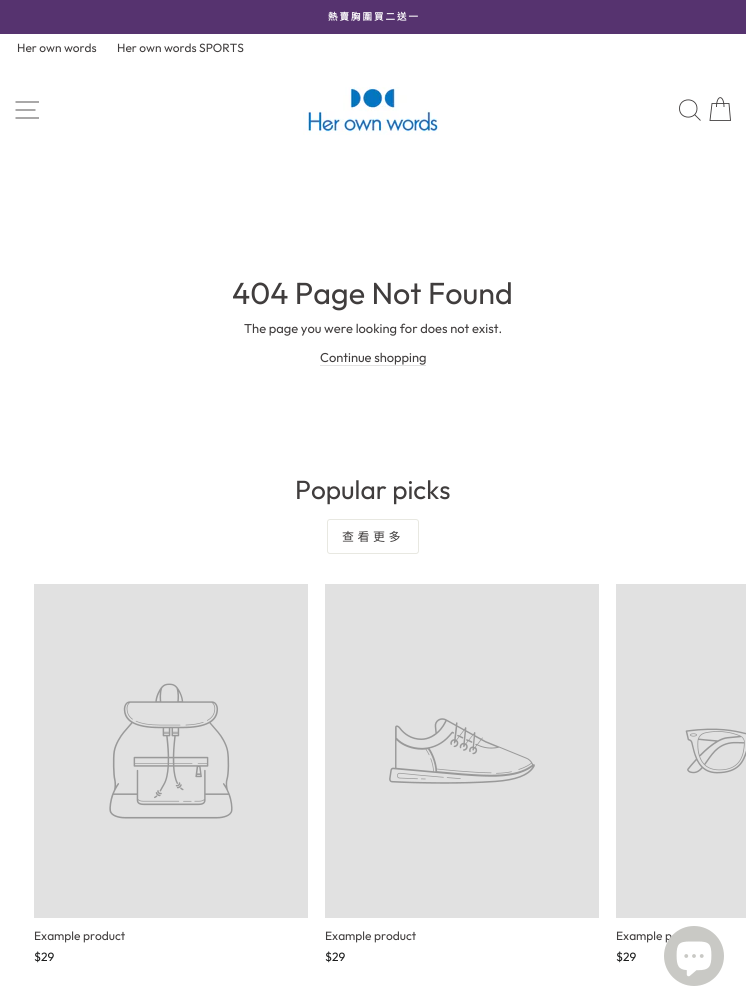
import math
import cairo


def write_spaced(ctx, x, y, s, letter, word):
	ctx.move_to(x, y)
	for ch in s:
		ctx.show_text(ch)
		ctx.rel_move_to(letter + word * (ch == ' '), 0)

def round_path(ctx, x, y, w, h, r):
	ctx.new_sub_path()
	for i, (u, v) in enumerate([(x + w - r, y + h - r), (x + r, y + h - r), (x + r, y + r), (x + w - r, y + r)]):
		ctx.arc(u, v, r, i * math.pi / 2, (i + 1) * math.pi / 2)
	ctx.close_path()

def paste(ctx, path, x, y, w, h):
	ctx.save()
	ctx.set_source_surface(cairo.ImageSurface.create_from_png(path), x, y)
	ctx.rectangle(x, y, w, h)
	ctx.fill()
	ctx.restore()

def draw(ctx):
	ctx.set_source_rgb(1, 1, 1)
	ctx.paint()
	ctx.set_source_rgb(0.337, 0.2, 0.435)
	ctx.rectangle(0, 0, 746, 34)
	ctx.fill()
	ctx.select_font_face('Noto Sans CJK TC', cairo.FONT_SLANT_NORMAL, cairo.FONT_WEIGHT_BOLD)
	ctx.set_font_size(9.5)
	ctx.set_source_rgb(1, 1, 1)
	write_spaced(ctx, 328, 20, '熱賣胸圍買二送一', 2, 0)
	ctx.select_font_face('Outfit')
	ctx.set_font_size(11.9)
	ctx.set_source_rgb(0.251, 0.239, 0.239)
	ctx.move_to(17, 52)
	ctx.show_text('Her own words')
	ctx.move_to(117, 52)
	ctx.show_text('Her own words SPORTS')
	ctx.new_path()
	ctx.move_to(15.5, 102)
	ctx.line_to(39, 102)
	ctx.move_to(15.5, 110)
	ctx.line_to(35.5, 110)
	ctx.move_to(15.5, 118)
	ctx.line_to(39, 118)
	ctx.set_line_width(0.9)
	ctx.stroke()
	paste(ctx, 'media/1.png', 303, 87, 136, 48)
	ctx.new_path()
	ctx.move_to(697, 108.5)
	ctx.curve_to(697, 120, 679.5, 120, 679.5, 108.5)
	ctx.curve_to(679.5, 97, 697, 97, 697, 108.5)
	ctx.close_path()
	ctx.move_to(700.5, 120.5)
	ctx.line_to(694.5, 114.5)
	ctx.move_to(716.5, 107)
	ctx.curve_to(716.5, 94.5, 724, 94.5, 724, 107)
	ctx.move_to(712, 103.5)
	ctx.line_to(729, 103.5)
	ctx.line_to(730.5, 120.5)
	ctx.line_to(710, 120.5)
	ctx.close_path()
	ctx.stroke()
	ctx.set_font_size(30.5)
	ctx.move_to(232, 304)
	ctx.show_text('404 Page Not Found')
	ctx.set_font_size(12.9)
	ctx.move_to(244, 333)
	ctx.show_text('The page you were looking for does not exist.')
	ctx.move_to(320, 362)
	ctx.show_text('Continue shopping')
	ctx.set_source_rgb(0.886, 0.886, 0.886)
	ctx.rectangle(320, 365, 106, 1)
	ctx.fill()
	ctx.set_font_size(26.25)
	ctx.set_source_rgb(0.251, 0.239, 0.239)
	ctx.move_to(295, 499)
	ctx.show_text('Popular picks')
	round_path(ctx, 327.5, 519.5, 91, 34, 2.5)
	ctx.set_source_rgb(0.91, 0.91, 0.882)
	ctx.set_line_width(1)
	ctx.stroke()
	ctx.select_font_face('Noto Sans CJK TC')
	ctx.set_font_size(12)
	ctx.set_source_rgb(0.251, 0.239, 0.239)
	write_spaced(ctx, 342, 541, '查看更多', 3.5, 0)
	ctx.set_source_rgb(0.882, 0.882, 0.882)
	ctx.rectangle(34, 584, 274, 334)
	ctx.fill()
	paste(ctx, 'media/2.png', 109, 683, 124, 136)
	ctx.select_font_face('Outfit')
	ctx.set_source_rgb(0.251, 0.239, 0.239)
	ctx.move_to(34, 940)
	ctx.show_text('Example product')
	ctx.set_source_rgb(0.11, 0.114, 0.114)
	ctx.move_to(34, 961)
	ctx.show_text('$29')
	ctx.set_source_rgb(0.882, 0.882, 0.882)
	ctx.rectangle(325, 584, 274, 334)
	ctx.fill()
	paste(ctx, 'media/3.png', 389, 718, 146, 66)
	ctx.set_source_rgb(0.251, 0.239, 0.239)
	ctx.move_to(325, 940)
	ctx.show_text('Example product')
	ctx.set_source_rgb(0.11, 0.114, 0.114)
	ctx.move_to(325, 961)
	ctx.show_text('$29')
	ctx.set_source_rgb(0.882, 0.882, 0.882)
	ctx.rectangle(616, 584, 130, 334)
	ctx.fill()
	paste(ctx, 'media/4.png', 685, 728, 61, 46)
	ctx.set_source_rgb(0.251, 0.239, 0.239)
	ctx.move_to(616, 940)
	ctx.show_text('Example p')
	ctx.set_source_rgb(0.11, 0.114, 0.114)
	ctx.move_to(616, 961)
	ctx.show_text('$29')
	ctx.set_source_rgb(0.788, 0.788, 0.773)
	ctx.new_path()
	ctx.arc(694, 956, 30, 0, 2 * math.pi)
	ctx.fill()
	paste(ctx, 'media/5.png', 676, 941, 36, 36)


surface = cairo.ImageSurface(cairo.FORMAT_RGB24, 746, 1007)
ctx = cairo.Context(surface)
options = cairo.FontOptions()
options.set_hint_metrics(cairo.HINT_METRICS_OFF)
options.set_hint_style(cairo.HINT_STYLE_NONE)
ctx.set_font_options(options)
ctx.set_miter_limit(4)
draw(ctx)
surface.write_to_png('image.png')
